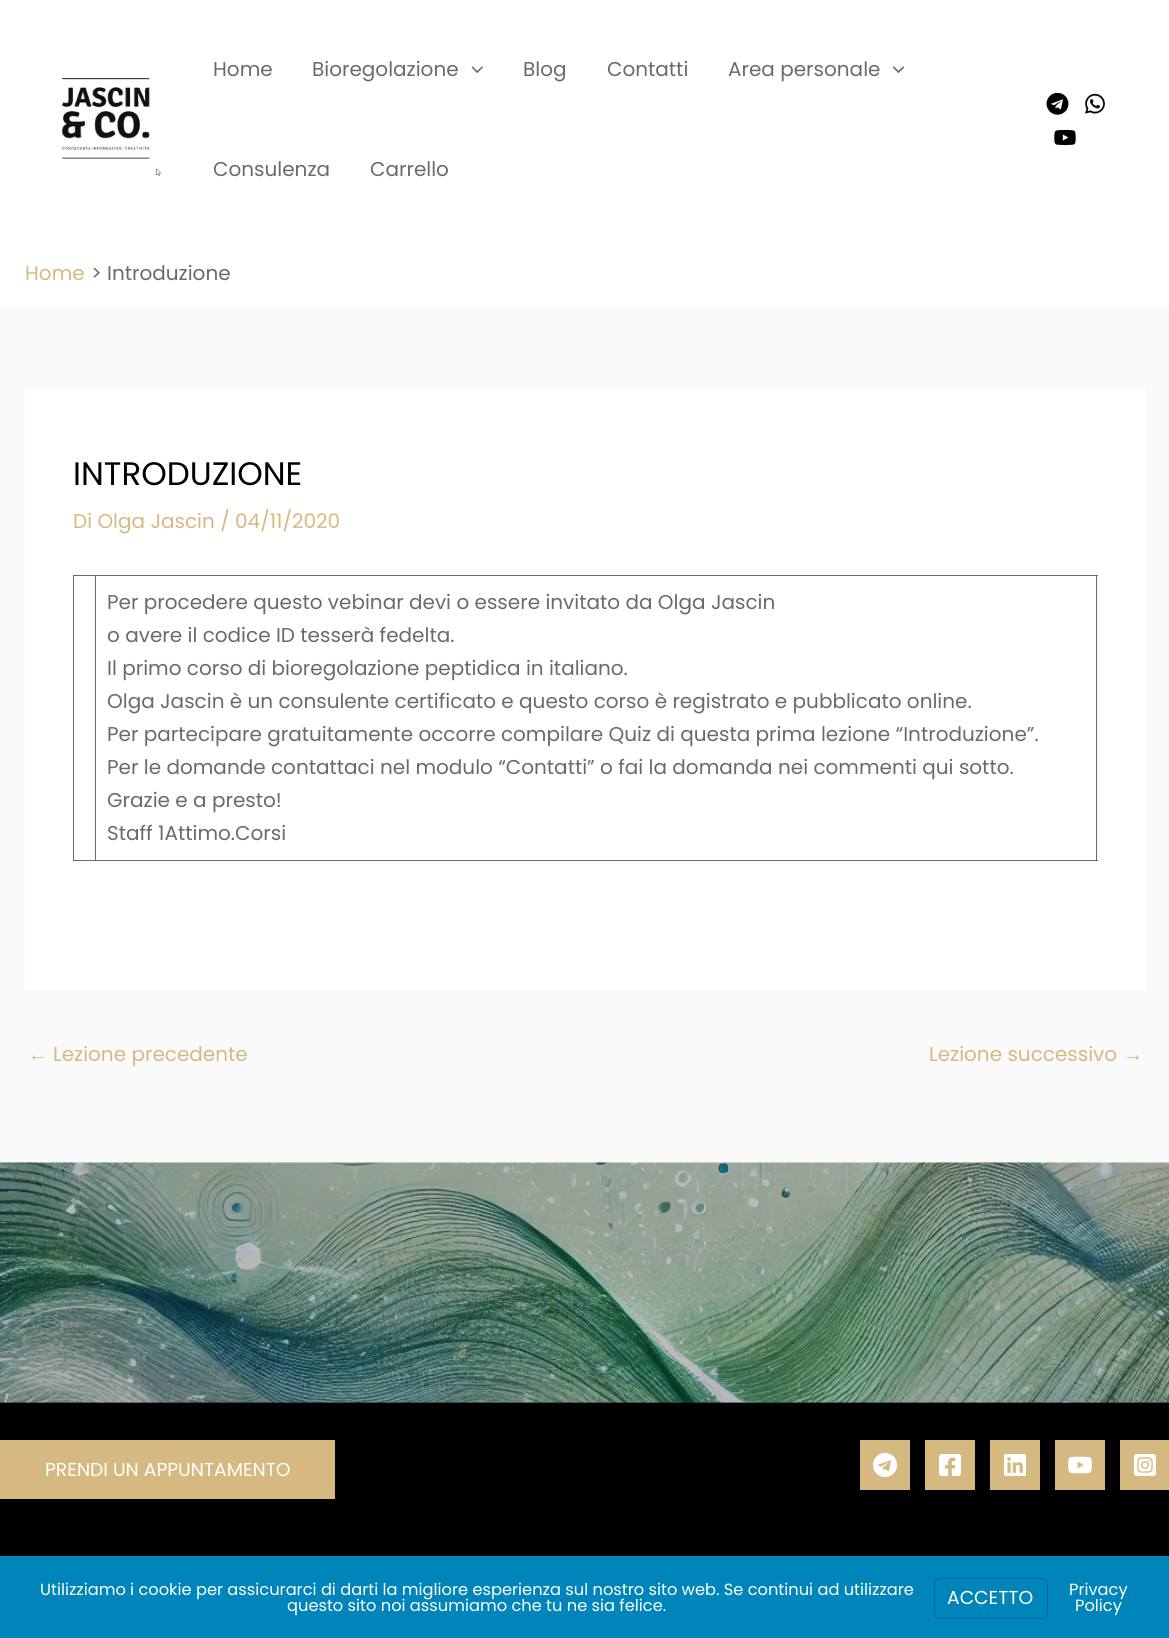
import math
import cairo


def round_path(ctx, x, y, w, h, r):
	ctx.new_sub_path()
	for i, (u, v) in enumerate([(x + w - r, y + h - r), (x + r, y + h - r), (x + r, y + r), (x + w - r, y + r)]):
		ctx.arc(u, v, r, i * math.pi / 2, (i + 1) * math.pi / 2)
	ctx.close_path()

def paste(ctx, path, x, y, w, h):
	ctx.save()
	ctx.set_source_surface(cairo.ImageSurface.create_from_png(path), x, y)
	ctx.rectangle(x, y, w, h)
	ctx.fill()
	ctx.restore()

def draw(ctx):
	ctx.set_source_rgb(0.98, 0.98, 0.98)
	ctx.paint()
	ctx.set_source_rgb(1, 1, 1)
	ctx.rectangle(0, 0, 1169, 308)
	ctx.fill()
	paste(ctx, 'media/1.png', 61, 77, 100, 99)
	ctx.select_font_face('Poppins')
	ctx.set_font_size(20)
	ctx.set_source_rgb(0.416, 0.416, 0.416)
	ctx.move_to(213, 76)
	ctx.show_text('Home')
	ctx.move_to(312, 76)
	ctx.show_text('Bioregolazione')
	paste(ctx, 'media/2.png', 471, 66, 12, 8)
	for x, y, s in [
		(523, 76, 'Blog'),
		(607, 76, 'Contatti'),
		(728, 76, 'Area personale'),
	]:
		ctx.move_to(x, y)
		ctx.show_text(s)
	paste(ctx, 'media/3.png', 893, 66, 12, 8)
	ctx.move_to(213, 176)
	ctx.show_text('Consulenza')
	ctx.move_to(370, 176)
	ctx.show_text('Carrello')
	paste(ctx, 'media/4.png', 1046, 93, 23, 22)
	paste(ctx, 'media/5.png', 1085, 93, 20, 21)
	paste(ctx, 'media/6.png', 1054, 129, 22, 17)
	ctx.set_source_rgb(0.839, 0.725, 0.506)
	ctx.move_to(25, 280)
	ctx.show_text('Home')
	ctx.set_source_rgb(0.416, 0.416, 0.416)
	ctx.move_to(91, 280)
	ctx.show_text('>')
	ctx.move_to(107, 280)
	ctx.show_text('Introduzione')
	ctx.set_source_rgb(1, 1, 1)
	ctx.rectangle(25, 388, 1120, 602)
	ctx.fill()
	ctx.set_font_size(32.5)
	ctx.set_source_rgb(0, 0, 0)
	ctx.move_to(73, 485)
	ctx.show_text('INTRODUZIONE')
	ctx.set_font_size(20)
	ctx.set_source_rgb(0.839, 0.725, 0.506)
	ctx.move_to(73, 528)
	ctx.show_text('Di Olga Jascin / 04/11/2020')
	ctx.set_source_rgb(0.416, 0.416, 0.416)
	ctx.rectangle(95, 575, 1003, 1)
	ctx.rectangle(1096, 575, 1, 286)
	ctx.rectangle(95, 860, 1003, 1)
	ctx.rectangle(95, 575, 1, 286)
	ctx.rectangle(73, 575, 23, 1)
	ctx.rectangle(73, 860, 23, 1)
	ctx.rectangle(73, 575, 1, 286)
	ctx.fill()
	for x, y, s in [
		(107, 609, 'Per procedere questo vebinar devi o essere invitato da Olga Jascin'),
		(107, 642, 'o avere il codice ID tesserà fedelta.'),
		(107, 675, 'Il primo corso di bioregolazione peptidica in italiano.'),
		(107, 708, 'Olga Jascin è un consulente certificato e questo corso è registrato e pubblicato online.'),
		(107, 741, 'Per partecipare gratuitamente occorre compilare Quiz di questa prima lezione “Introduzione”.'),
		(107, 774, 'Per le domande contattaci nel modulo “Contatti” o fai la domanda nei commenti qui sotto.'),
		(107, 807, 'Grazie e a presto!'),
		(107, 840, 'Staff 1Attimo.Corsi'),
	]:
		ctx.move_to(x, y)
		ctx.show_text(s)
	ctx.select_font_face('Liberation Sans')
	ctx.set_source_rgb(0.839, 0.725, 0.506)
	ctx.move_to(28, 1061)
	ctx.show_text('←')
	ctx.select_font_face('Poppins')
	ctx.move_to(53, 1061)
	ctx.show_text('Lezione precedente')
	ctx.move_to(929, 1061)
	ctx.show_text('Lezione successivo')
	ctx.select_font_face('Liberation Sans')
	ctx.move_to(1123, 1061)
	ctx.show_text('→')
	ctx.set_source_rgb(0.039, 0.039, 0.039)
	ctx.rectangle(0, 1402, 1169, 1)
	ctx.fill()
	paste(ctx, 'media/7.png', 0, 1162, 1169, 241)
	ctx.set_source_rgb(0, 0, 0)
	ctx.rectangle(0, 1403, 1169, 153)
	ctx.fill()
	ctx.set_source_rgb(0.839, 0.725, 0.506)
	ctx.rectangle(0, 1440, 335, 59)
	ctx.fill()
	ctx.select_font_face('Poppins')
	ctx.set_font_size(18.75)
	ctx.set_source_rgb(1, 1, 1)
	ctx.move_to(45, 1476)
	ctx.show_text('PRENDI UN APPUNTAMENTO')
	ctx.set_source_rgb(0.839, 0.725, 0.506)
	ctx.rectangle(860, 1440, 50, 50)
	ctx.fill()
	paste(ctx, 'media/8.png', 873, 1453, 25, 25)
	ctx.rectangle(925, 1440, 50, 50)
	ctx.fill()
	paste(ctx, 'media/9.png', 939, 1454, 22, 22)
	ctx.rectangle(990, 1440, 50, 50)
	ctx.fill()
	paste(ctx, 'media/10.png', 1004, 1454, 22, 22)
	ctx.rectangle(1055, 1440, 50, 50)
	ctx.fill()
	paste(ctx, 'media/11.png', 1068, 1456, 24, 18)
	ctx.rectangle(1120, 1440, 49, 50)
	ctx.fill()
	paste(ctx, 'media/12.png', 1134, 1454, 22, 22)
	ctx.set_source_rgb(0, 0.522, 0.729)
	ctx.rectangle(0, 1556, 1169, 82)
	ctx.fill()
	ctx.set_font_size(16.25)
	ctx.set_source_rgb(1, 1, 1)
	ctx.move_to(40, 1595)
	ctx.show_text('Utilizziamo i cookie per assicurarci di darti la migliore esperienza sul nostro sito web. Se continui ad utilizzare')
	ctx.move_to(287, 1611)
	ctx.show_text('questo sito noi assumiamo che tu ne sia felice.')
	round_path(ctx, 934.5, 1578.5, 113, 40, 5.5)
	ctx.set_source_rgb(0, 0.404, 0.6)
	ctx.set_line_width(1)
	ctx.stroke()
	ctx.set_font_size(18.75)
	ctx.set_source_rgb(1, 1, 1)
	ctx.move_to(947, 1604)
	ctx.show_text('ACCETTO')
	ctx.set_font_size(16.25)
	ctx.move_to(1069, 1595)
	ctx.show_text('Privacy')
	ctx.move_to(1075, 1611)
	ctx.show_text('Policy')


surface = cairo.ImageSurface(cairo.FORMAT_RGB24, 1169, 1638)
ctx = cairo.Context(surface)
options = cairo.FontOptions()
options.set_hint_metrics(cairo.HINT_METRICS_OFF)
options.set_hint_style(cairo.HINT_STYLE_NONE)
ctx.set_font_options(options)
ctx.set_miter_limit(4)
draw(ctx)
surface.write_to_png('image.png')
